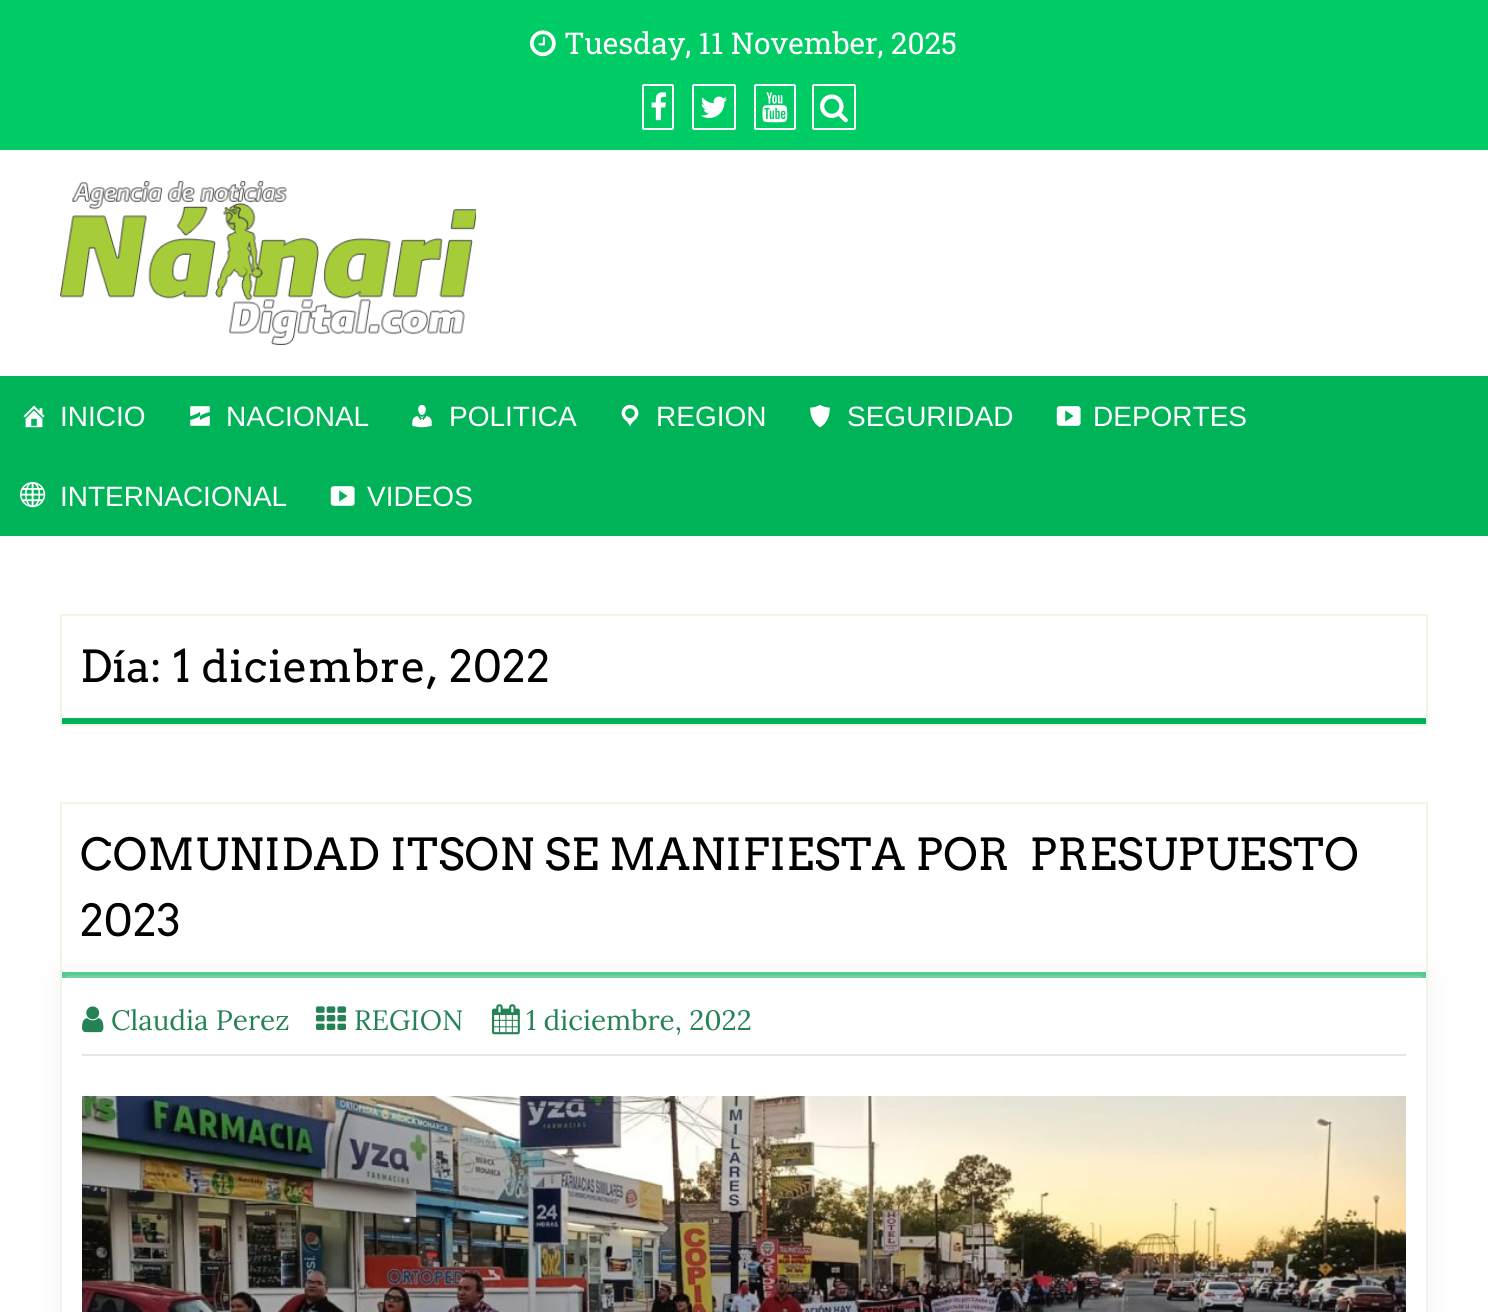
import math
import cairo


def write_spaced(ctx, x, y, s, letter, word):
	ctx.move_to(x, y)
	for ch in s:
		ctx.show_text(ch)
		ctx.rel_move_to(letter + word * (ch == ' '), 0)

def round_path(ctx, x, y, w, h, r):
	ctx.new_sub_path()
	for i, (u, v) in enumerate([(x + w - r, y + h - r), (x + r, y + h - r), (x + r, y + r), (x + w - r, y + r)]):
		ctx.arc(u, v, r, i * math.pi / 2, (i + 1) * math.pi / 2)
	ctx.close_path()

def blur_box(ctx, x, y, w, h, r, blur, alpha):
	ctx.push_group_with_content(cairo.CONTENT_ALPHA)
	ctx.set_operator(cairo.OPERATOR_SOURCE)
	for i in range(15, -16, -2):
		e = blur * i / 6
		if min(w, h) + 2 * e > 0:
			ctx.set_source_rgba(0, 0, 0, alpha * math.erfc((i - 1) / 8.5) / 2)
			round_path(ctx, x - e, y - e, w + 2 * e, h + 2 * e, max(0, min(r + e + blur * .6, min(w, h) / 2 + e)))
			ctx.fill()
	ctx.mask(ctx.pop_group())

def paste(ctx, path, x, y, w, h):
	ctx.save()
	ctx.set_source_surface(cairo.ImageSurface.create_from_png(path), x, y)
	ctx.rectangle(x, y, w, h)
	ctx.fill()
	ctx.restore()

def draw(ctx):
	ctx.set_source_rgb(1, 1, 1)
	ctx.paint()
	ctx.set_source_rgb(0, 0.8, 0.4)
	ctx.rectangle(0, 0, 1488, 150)
	ctx.fill()
	paste(ctx, 'media/1.png', 530, 30, 26, 27)
	ctx.select_font_face('Roboto Slab')
	ctx.set_font_size(30)
	ctx.set_source_rgb(1, 1, 1)
	ctx.move_to(564, 54)
	ctx.show_text('Tuesday, 11 November, 2025')
	round_path(ctx, 643, 85, 30, 44, 1)
	ctx.stroke()
	paste(ctx, 'media/2.png', 651, 92, 16, 29)
	round_path(ctx, 693, 85, 42, 44, 1)
	ctx.stroke()
	paste(ctx, 'media/3.png', 701, 96, 26, 22)
	round_path(ctx, 755, 85, 40, 44, 1)
	ctx.stroke()
	paste(ctx, 'media/4.png', 762, 92, 26, 31)
	round_path(ctx, 813, 85, 42, 44, 1)
	ctx.stroke()
	paste(ctx, 'media/5.png', 820, 94, 28, 29)
	paste(ctx, 'media/6.png', 60, 181, 416, 164)
	ctx.set_source_rgb(0, 0.702, 0.349)
	ctx.rectangle(0, 376, 1488, 160)
	ctx.fill()
	paste(ctx, 'media/7.png', 23, 405, 22, 23)
	ctx.select_font_face('Liberation Sans')
	ctx.set_font_size(28)
	ctx.set_source_rgb(1, 1, 1)
	ctx.move_to(60, 426)
	ctx.show_text('INICIO')
	paste(ctx, 'media/8.png', 190, 406, 20, 20)
	ctx.move_to(226, 426)
	ctx.show_text('NACIONAL')
	paste(ctx, 'media/9.png', 412, 405, 20, 23)
	ctx.move_to(449, 426)
	ctx.show_text('POLITICA')
	paste(ctx, 'media/10.png', 621, 404, 18, 23)
	ctx.move_to(656, 426)
	ctx.show_text('REGION')
	paste(ctx, 'media/11.png', 810, 404, 20, 24)
	ctx.move_to(847, 426)
	ctx.show_text('SEGURIDAD')
	paste(ctx, 'media/12.png', 1056, 406, 25, 20)
	ctx.move_to(1093, 426)
	ctx.show_text('DEPORTES')
	paste(ctx, 'media/13.png', 20, 482, 26, 26)
	ctx.move_to(60, 506)
	ctx.show_text('INTERNACIONAL')
	paste(ctx, 'media/12.png', 330, 486, 25, 20)
	ctx.move_to(367, 506)
	ctx.show_text('VIDEOS')
	ctx.rectangle(61, 615, 1366, 110)
	ctx.set_source_rgb(0.929, 0.961, 0.886)
	ctx.stroke()
	ctx.set_source_rgb(0, 0.702, 0.349)
	ctx.rectangle(62, 718, 1364, 6)
	ctx.fill()
	ctx.select_font_face('Arvo')
	ctx.set_font_size(44)
	ctx.set_source_rgb(0, 0, 0)
	write_spaced(ctx, 80, 682, 'Día: 1 diciembre, 2022', 0.4, 0)
	ctx.rectangle(61, 803, 1366, 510)
	ctx.set_source_rgb(0.929, 0.961, 0.886)
	ctx.stroke()
	ctx.set_source_rgb(0, 0.702, 0.349)
	ctx.rectangle(62, 972, 1364, 6)
	ctx.fill()
	ctx.set_source_rgb(0, 0, 0)
	write_spaced(ctx, 80, 870, 'COMUNIDAD ITSON SE MANIFIESTA POR  PRESUPUESTO', 0.4, 0)
	ctx.save()
	ctx.set_fill_rule(cairo.FILL_RULE_EVEN_ODD)
	ctx.new_path()
	ctx.move_to(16, 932)
	ctx.line_to(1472, 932)
	ctx.line_to(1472, 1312)
	ctx.line_to(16, 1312)
	ctx.close_path()
	ctx.move_to(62, 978)
	ctx.line_to(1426, 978)
	ctx.line_to(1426, 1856)
	ctx.line_to(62, 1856)
	ctx.close_path()
	ctx.clip()
	ctx.set_source_rgb(0.945, 0.945, 0.945)
	blur_box(ctx, 62, 978, 1364, 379, 0, 15, 1)
	ctx.restore()
	write_spaced(ctx, 80, 936, '2023', 0.4, 0)
	paste(ctx, 'media/14.png', 82, 1006, 22, 27)
	ctx.select_font_face('Lora')
	ctx.set_font_size(28)
	ctx.set_source_rgb(0.145, 0.51, 0.329)
	ctx.move_to(111, 1030)
	ctx.show_text('Claudia Perez')
	paste(ctx, 'media/15.png', 316, 1006, 30, 24)
	ctx.move_to(354, 1030)
	ctx.show_text('REGION')
	paste(ctx, 'media/16.png', 492, 1004, 28, 31)
	ctx.move_to(526, 1030)
	ctx.show_text('1 diciembre, 2022')
	ctx.set_source_rgb(0.902, 0.902, 0.902)
	ctx.rectangle(82, 1054, 1324, 2)
	ctx.fill()
	paste(ctx, 'media/17.png', 82, 1096, 1324, 216)


surface = cairo.ImageSurface(cairo.FORMAT_RGB24, 1488, 1312)
ctx = cairo.Context(surface)
options = cairo.FontOptions()
options.set_hint_metrics(cairo.HINT_METRICS_OFF)
options.set_hint_style(cairo.HINT_STYLE_NONE)
ctx.set_font_options(options)
ctx.set_miter_limit(4)
draw(ctx)
surface.write_to_png('image.png')
